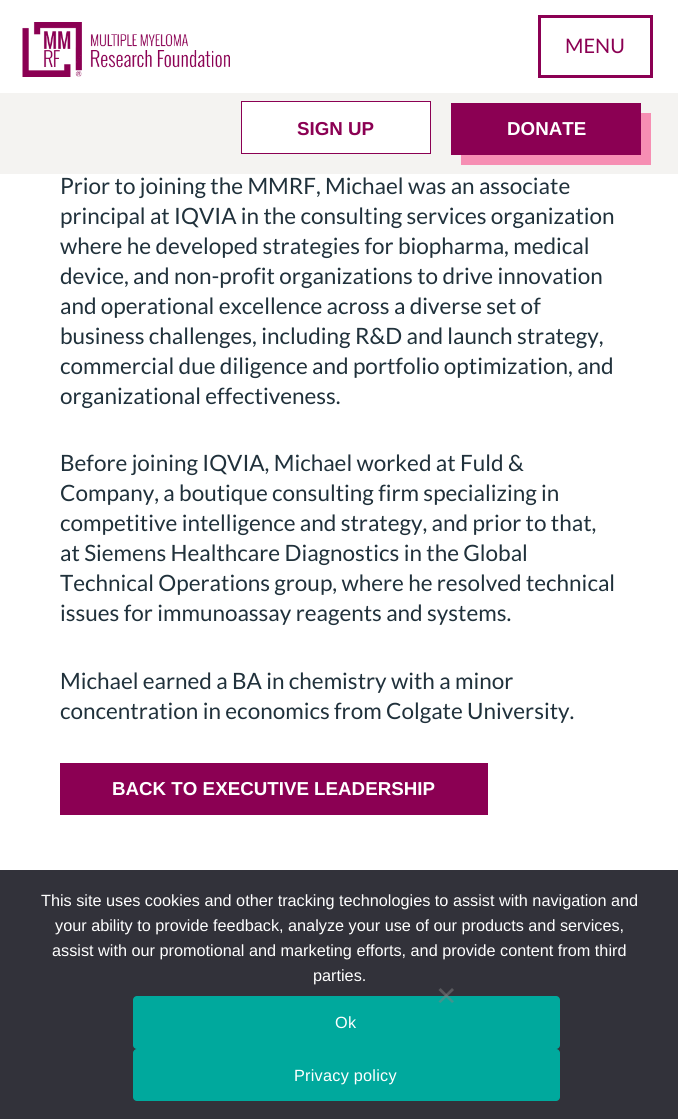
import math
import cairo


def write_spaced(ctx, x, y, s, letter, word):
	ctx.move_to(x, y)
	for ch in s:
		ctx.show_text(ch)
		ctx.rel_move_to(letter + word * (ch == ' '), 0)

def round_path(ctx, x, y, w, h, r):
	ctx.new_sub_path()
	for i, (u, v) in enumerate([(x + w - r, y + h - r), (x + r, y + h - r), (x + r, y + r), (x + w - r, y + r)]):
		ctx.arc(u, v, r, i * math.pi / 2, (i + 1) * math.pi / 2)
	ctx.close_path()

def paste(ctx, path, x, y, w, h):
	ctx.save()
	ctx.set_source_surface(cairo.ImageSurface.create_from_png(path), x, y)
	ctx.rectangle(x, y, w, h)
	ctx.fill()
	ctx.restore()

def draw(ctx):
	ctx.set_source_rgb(1, 1, 1)
	ctx.paint()
	paste(ctx, 'media/1.png', 22, 22, 208, 55)
	ctx.rectangle(539.5, 16.5, 112, 60)
	ctx.set_source_rgb(0.545, 0, 0.325)
	ctx.set_line_width(3)
	ctx.stroke()
	ctx.select_font_face('Lato')
	ctx.set_font_size(20)
	ctx.move_to(565, 53)
	ctx.show_text('MENU')
	ctx.set_source_rgb(0.957, 0.953, 0.945)
	ctx.rectangle(0, 93, 678, 81)
	ctx.fill()
	ctx.set_source_rgb(1, 1, 1)
	ctx.rectangle(241.5, 101.5, 189, 52)
	ctx.fill_preserve()
	ctx.set_source_rgb(0.545, 0, 0.325)
	ctx.set_line_width(1)
	ctx.stroke()
	ctx.select_font_face('Liberation Sans', cairo.FONT_SLANT_NORMAL, cairo.FONT_WEIGHT_BOLD)
	ctx.set_font_size(18.75)
	ctx.move_to(297, 135)
	ctx.show_text('SIGN UP')
	ctx.set_source_rgb(0.961, 0.557, 0.702)
	ctx.new_path()
	ctx.move_to(461, 155)
	ctx.line_to(461, 165)
	ctx.line_to(651, 165)
	ctx.line_to(651, 113)
	ctx.line_to(641, 113)
	ctx.line_to(641, 155)
	ctx.close_path()
	ctx.fill()
	ctx.set_source_rgb(0.545, 0, 0.325)
	ctx.rectangle(451, 103, 190, 52)
	ctx.fill()
	ctx.set_source_rgb(1, 1, 1)
	ctx.move_to(507, 135)
	ctx.show_text('DONATE')
	ctx.select_font_face('Lato')
	ctx.set_font_size(22.5)
	ctx.set_source_rgb(0.125, 0.192, 0.231)
	for x, y, s in [
		(60, 194, 'Prior to joining the MMRF, Michael was an associate'),
		(60, 224, 'principal at IQVIA in the consulting services organization'),
		(60, 254, 'where he developed strategies for biopharma, medical'),
		(60, 284, 'device, and non-profit organizations to drive innovation'),
		(60, 314, 'and operational excellence across a diverse set of'),
		(60, 344, 'business challenges, including R&D and launch strategy,'),
		(60, 374, 'commercial due diligence and portfolio optimization, and'),
		(60, 404, 'organizational effectiveness.'),
		(60, 471, 'Before joining IQVIA, Michael worked at Fuld &'),
		(60, 501, 'Company, a boutique consulting firm specializing in'),
		(60, 531, 'competitive intelligence and strategy, and prior to that,'),
		(60, 561, 'at Siemens Healthcare Diagnostics in the Global'),
		(60, 591, 'Technical Operations group, where he resolved technical'),
		(60, 621, 'issues for immunoassay reagents and systems.'),
		(60, 689, 'Michael earned a BA in chemistry with a minor'),
		(60, 719, 'concentration in economics from Colgate University.'),
	]:
		ctx.move_to(x, y)
		ctx.show_text(s)
	ctx.set_source_rgb(0.545, 0, 0.325)
	ctx.rectangle(60, 763, 428, 52)
	ctx.fill()
	ctx.select_font_face('Liberation Sans', cairo.FONT_SLANT_NORMAL, cairo.FONT_WEIGHT_BOLD)
	ctx.set_font_size(18.75)
	ctx.set_source_rgb(1, 1, 1)
	ctx.move_to(112, 795)
	ctx.show_text('BACK TO EXECUTIVE LEADERSHIP')
	ctx.set_source_rgb(0.196, 0.196, 0.227)
	ctx.rectangle(0, 870, 678, 249)
	ctx.fill()
	ctx.select_font_face('Liberation Sans')
	ctx.set_font_size(16.25)
	ctx.set_source_rgb(1, 1, 1)
	for x, y, s in [
		(41, 906, 'This site uses cookies and other tracking technologies to assist with navigation and'),
		(55, 931, 'your ability to provide feedback, analyze your use of our products and services,'),
		(52, 956, 'assist with our promotional and marketing efforts, and provide content from third'),
		(313, 981, 'parties.'),
	]:
		ctx.move_to(x, y)
		ctx.show_text(s)
	ctx.set_source_rgb(0, 0.663, 0.616)
	round_path(ctx, 133, 996, 427, 53, 4)
	ctx.fill()
	ctx.set_source_rgba(0.502, 0.502, 0.502, 0.5)
	ctx.new_path()
	ctx.move_to(452, 988)
	ctx.line_to(454, 990)
	ctx.line_to(440.5, 1003)
	ctx.line_to(438.5, 1001.5)
	ctx.close_path()
	ctx.fill()
	ctx.new_path()
	ctx.move_to(438.5, 990)
	ctx.line_to(440.5, 988)
	ctx.line_to(454, 1001.5)
	ctx.line_to(452, 1003)
	ctx.close_path()
	ctx.fill()
	ctx.set_source_rgb(1, 1, 1)
	write_spaced(ctx, 335, 1028, 'Ok', 0.25, 0)
	ctx.set_source_rgb(0, 0.663, 0.616)
	round_path(ctx, 133, 1049, 427, 52, 4)
	ctx.fill()
	ctx.set_source_rgb(1, 1, 1)
	write_spaced(ctx, 294, 1081, 'Privacy policy', 0.25, 0)


surface = cairo.ImageSurface(cairo.FORMAT_RGB24, 678, 1119)
ctx = cairo.Context(surface)
options = cairo.FontOptions()
options.set_hint_metrics(cairo.HINT_METRICS_OFF)
options.set_hint_style(cairo.HINT_STYLE_NONE)
ctx.set_font_options(options)
ctx.set_miter_limit(4)
draw(ctx)
surface.write_to_png('image.png')
